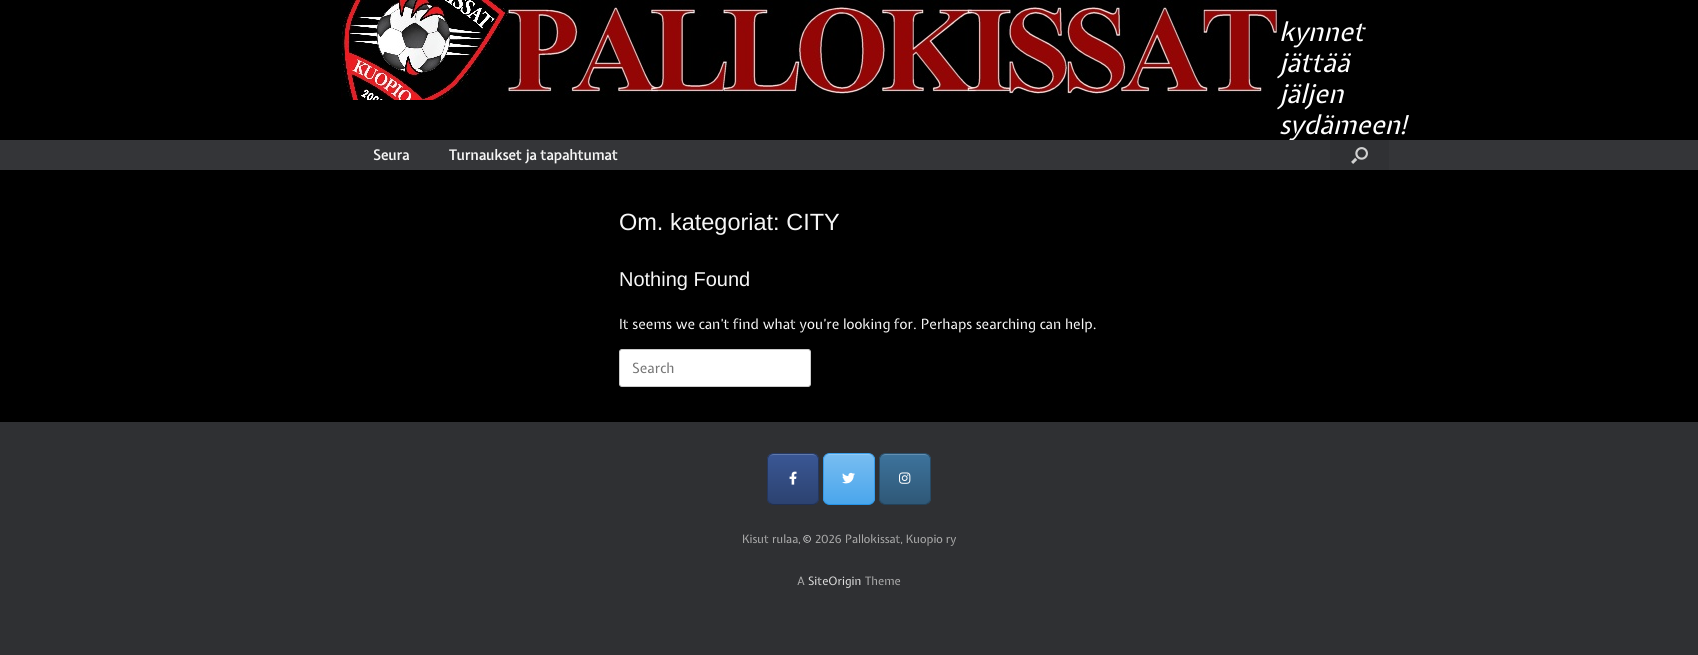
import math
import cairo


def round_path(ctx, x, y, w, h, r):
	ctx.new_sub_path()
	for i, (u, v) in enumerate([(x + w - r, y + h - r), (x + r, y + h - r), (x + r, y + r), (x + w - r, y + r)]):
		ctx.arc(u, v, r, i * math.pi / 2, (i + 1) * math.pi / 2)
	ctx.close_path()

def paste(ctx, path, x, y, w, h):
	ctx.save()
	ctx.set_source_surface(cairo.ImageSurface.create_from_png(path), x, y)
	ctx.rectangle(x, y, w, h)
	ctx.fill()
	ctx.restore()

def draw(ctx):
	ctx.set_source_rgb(0.184, 0.188, 0.2)
	ctx.paint()
	ctx.set_source_rgb(0, 0, 0)
	ctx.rectangle(0, 0, 1698, 140)
	ctx.fill()
	paste(ctx, 'media/1.png', 341, 0, 938, 100)
	ctx.select_font_face('Expletus Sans', cairo.FONT_SLANT_ITALIC)
	ctx.set_font_size(26)
	ctx.set_source_rgb(1, 1, 1)
	for x, y, s in [
		(1279, 41, 'kynnet'),
		(1279, 72, 'jättää'),
		(1279, 103, 'jäljen'),
		(1279, 134, 'sydämeen!'),
	]:
		ctx.move_to(x, y)
		ctx.show_text(s)
	ctx.set_source_rgb(0.204, 0.208, 0.22)
	ctx.rectangle(0, 140, 1698, 30)
	ctx.fill()
	ctx.select_font_face('Expletus Sans', cairo.FONT_SLANT_NORMAL, cairo.FONT_WEIGHT_BOLD)
	ctx.set_font_size(14)
	ctx.set_source_rgb(0.961, 0.961, 0.961)
	ctx.move_to(373, 160)
	ctx.show_text('Seura')
	ctx.move_to(449, 160)
	ctx.show_text('Turnaukset ja tapahtumat')
	ctx.set_source_rgb(0.188, 0.192, 0.204)
	ctx.rectangle(1330, 140, 59, 30)
	ctx.fill()
	paste(ctx, 'media/2.png', 1351, 147, 17, 17)
	ctx.set_source_rgb(0, 0, 0)
	ctx.rectangle(0, 170, 1698, 252)
	ctx.fill()
	ctx.select_font_face('Liberation Sans')
	ctx.set_font_size(23.5)
	ctx.set_source_rgb(0.961, 0.961, 0.961)
	ctx.move_to(619, 230)
	ctx.show_text('Om. kategoriat: CITY')
	ctx.set_font_size(20)
	ctx.move_to(619, 286)
	ctx.show_text('Nothing Found')
	ctx.select_font_face('Expletus Sans')
	ctx.set_font_size(14)
	ctx.move_to(619, 329)
	ctx.show_text('It seems we can’t find what you’re looking for. Perhaps searching can help.')
	ctx.set_source_rgb(1, 1, 1)
	round_path(ctx, 619.5, 349.5, 191, 37, 2.5)
	ctx.fill_preserve()
	ctx.set_source_rgb(0.8, 0.8, 0.8)
	ctx.set_line_width(1)
	ctx.stroke()
	ctx.set_source_rgb(0.459, 0.459, 0.459)
	ctx.move_to(632, 373)
	ctx.show_text('Search')
	ctx.save()
	round_path(ctx, 767, 453, 52, 52, 7)
	ctx.clip()
	gradient = cairo.LinearGradient(768, 504, 768, 454)
	gradient.add_color_stop_rgba(0, 0.173, 0.259, 0.439, 1)
	gradient.add_color_stop_rgba(1, 0.227, 0.341, 0.584, 1)
	ctx.set_source(gradient)
	ctx.rectangle(767, 454, 52, 50)
	ctx.fill()
	ctx.restore()
	ctx.set_source_rgb(0.38, 0.475, 0.667)
	ctx.new_path()
	ctx.move_to(774, 455)
	ctx.line_to(812, 455)
	ctx.curve_to(815, 455, 817, 456, 818, 459)
	ctx.curve_to(817, 456, 815, 454, 812, 454)
	ctx.line_to(774, 454)
	ctx.curve_to(771, 454, 769, 456, 768, 459)
	ctx.curve_to(769, 456, 771, 455, 774, 455)
	ctx.close_path()
	ctx.fill()
	ctx.new_path()
	ctx.move_to(769.5, 455.5)
	ctx.curve_to(770.5, 454, 772, 453.5, 773.5, 453.5)
	ctx.line_to(812.5, 453.5)
	ctx.curve_to(814, 453.5, 815.5, 454, 816.5, 455.5)
	ctx.set_source_rgb(0.153, 0.231, 0.396)
	ctx.stroke()
	ctx.new_path()
	ctx.move_to(816.5, 455.5)
	ctx.curve_to(818, 456.5, 818.5, 458, 818.5, 459.5)
	ctx.line_to(818.5, 498.5)
	ctx.curve_to(818.5, 500, 818, 501.5, 816.5, 502.5)
	ctx.set_source_rgb(0.145, 0.216, 0.369)
	ctx.stroke()
	ctx.new_path()
	ctx.move_to(816.5, 502.5)
	ctx.curve_to(815.5, 504, 814, 504.5, 812.5, 504.5)
	ctx.line_to(773.5, 504.5)
	ctx.curve_to(772, 504.5, 770.5, 504, 769.5, 502.5)
	ctx.set_source_rgb(0.125, 0.188, 0.325)
	ctx.stroke()
	ctx.new_path()
	ctx.move_to(769.5, 502.5)
	ctx.curve_to(768, 501.5, 767.5, 500, 767.5, 498.5)
	ctx.line_to(767.5, 459.5)
	ctx.curve_to(767.5, 458, 768, 456.5, 769.5, 455.5)
	ctx.set_source_rgb(0.145, 0.216, 0.369)
	ctx.stroke()
	paste(ctx, 'media/3.png', 789, 471, 8, 14)
	ctx.save()
	round_path(ctx, 823, 453, 52, 52, 7)
	ctx.clip()
	gradient = cairo.LinearGradient(824, 504, 824, 454)
	gradient.add_color_stop_rgba(0, 0.29, 0.651, 0.925, 1)
	gradient.add_color_stop_rgba(1, 0.471, 0.741, 0.945, 1)
	ctx.set_source(gradient)
	ctx.rectangle(823, 454, 52, 50)
	ctx.fill()
	ctx.restore()
	ctx.set_source_rgb(0.576, 0.792, 0.957)
	ctx.new_path()
	ctx.move_to(830, 455)
	ctx.line_to(868, 455)
	ctx.curve_to(871, 455, 873, 456, 874, 459)
	ctx.curve_to(873, 456, 871, 454, 868, 454)
	ctx.line_to(830, 454)
	ctx.curve_to(827, 454, 825, 456, 824, 459)
	ctx.curve_to(825, 456, 827, 455, 830, 455)
	ctx.close_path()
	ctx.fill()
	ctx.new_path()
	ctx.move_to(825.5, 455.5)
	ctx.curve_to(826.5, 454, 828, 453.5, 829.5, 453.5)
	ctx.line_to(868.5, 453.5)
	ctx.curve_to(870, 453.5, 871.5, 454, 872.5, 455.5)
	ctx.set_source_rgb(0.235, 0.627, 0.922)
	ctx.stroke()
	ctx.new_path()
	ctx.move_to(872.5, 455.5)
	ctx.curve_to(874, 456.5, 874.5, 458, 874.5, 459.5)
	ctx.line_to(874.5, 498.5)
	ctx.curve_to(874.5, 500, 874, 501.5, 872.5, 502.5)
	ctx.set_source_rgb(0.2, 0.608, 0.918)
	ctx.stroke()
	ctx.new_path()
	ctx.move_to(872.5, 502.5)
	ctx.curve_to(871.5, 504, 870, 504.5, 868.5, 504.5)
	ctx.line_to(829.5, 504.5)
	ctx.curve_to(828, 504.5, 826.5, 504, 825.5, 502.5)
	ctx.set_source_rgb(0.145, 0.58, 0.91)
	ctx.stroke()
	ctx.new_path()
	ctx.move_to(825.5, 502.5)
	ctx.curve_to(824, 501.5, 823.5, 500, 823.5, 498.5)
	ctx.line_to(823.5, 459.5)
	ctx.curve_to(823.5, 458, 824, 456.5, 825.5, 455.5)
	ctx.set_source_rgb(0.2, 0.608, 0.918)
	ctx.stroke()
	paste(ctx, 'media/4.png', 842, 472, 13, 12)
	ctx.save()
	round_path(ctx, 879, 453, 52, 52, 7)
	ctx.clip()
	gradient = cairo.LinearGradient(880, 504, 880, 454)
	gradient.add_color_stop_rgba(0, 0.184, 0.345, 0.467, 1)
	gradient.add_color_stop_rgba(1, 0.239, 0.451, 0.612, 1)
	ctx.set_source(gradient)
	ctx.rectangle(879, 454, 52, 50)
	ctx.fill()
	ctx.restore()
	ctx.set_source_rgb(0.392, 0.561, 0.69)
	ctx.new_path()
	ctx.move_to(886, 455)
	ctx.line_to(924, 455)
	ctx.curve_to(927, 455, 929, 456, 930, 459)
	ctx.curve_to(929, 456, 927, 454, 924, 454)
	ctx.line_to(886, 454)
	ctx.curve_to(883, 454, 881, 456, 880, 459)
	ctx.curve_to(881, 456, 883, 455, 886, 455)
	ctx.close_path()
	ctx.fill()
	ctx.new_path()
	ctx.move_to(881.5, 455.5)
	ctx.curve_to(882.5, 454, 884, 453.5, 885.5, 453.5)
	ctx.line_to(924.5, 453.5)
	ctx.curve_to(926, 453.5, 927.5, 454, 928.5, 455.5)
	ctx.set_source_rgb(0.165, 0.314, 0.424)
	ctx.stroke()
	ctx.new_path()
	ctx.move_to(928.5, 455.5)
	ctx.curve_to(930, 456.5, 930.5, 458, 930.5, 459.5)
	ctx.line_to(930.5, 498.5)
	ctx.curve_to(930.5, 500, 930, 501.5, 928.5, 502.5)
	ctx.set_source_rgb(0.153, 0.29, 0.396)
	ctx.stroke()
	ctx.new_path()
	ctx.move_to(928.5, 502.5)
	ctx.curve_to(927.5, 504, 926, 504.5, 924.5, 504.5)
	ctx.line_to(885.5, 504.5)
	ctx.curve_to(884, 504.5, 882.5, 504, 881.5, 502.5)
	ctx.set_source_rgb(0.137, 0.259, 0.353)
	ctx.stroke()
	ctx.new_path()
	ctx.move_to(881.5, 502.5)
	ctx.curve_to(880, 501.5, 879.5, 500, 879.5, 498.5)
	ctx.line_to(879.5, 459.5)
	ctx.curve_to(879.5, 458, 880, 456.5, 881.5, 455.5)
	ctx.set_source_rgb(0.153, 0.29, 0.396)
	ctx.stroke()
	paste(ctx, 'media/5.png', 899, 472, 12, 12)
	ctx.set_font_size(11.5)
	ctx.set_source_rgb(0.667, 0.667, 0.667)
	ctx.move_to(742, 543)
	ctx.show_text('Kisut rulaa,')
	ctx.set_source_rgb(0.867, 0.867, 0.867)
	ctx.move_to(803, 543)
	ctx.show_text('©')
	ctx.set_source_rgb(0.667, 0.667, 0.667)
	ctx.move_to(815, 543)
	ctx.show_text('2026 Pallokissat, Kuopio ry')
	ctx.move_to(797, 585)
	ctx.show_text('A')
	ctx.set_source_rgb(0.867, 0.867, 0.867)
	ctx.move_to(808, 585)
	ctx.show_text('SiteOrigin')
	ctx.set_source_rgb(0.667, 0.667, 0.667)
	ctx.move_to(865, 585)
	ctx.show_text('Theme')


surface = cairo.ImageSurface(cairo.FORMAT_RGB24, 1698, 655)
ctx = cairo.Context(surface)
options = cairo.FontOptions()
options.set_hint_metrics(cairo.HINT_METRICS_OFF)
options.set_hint_style(cairo.HINT_STYLE_NONE)
ctx.set_font_options(options)
ctx.set_miter_limit(4)
draw(ctx)
surface.write_to_png('image.png')
